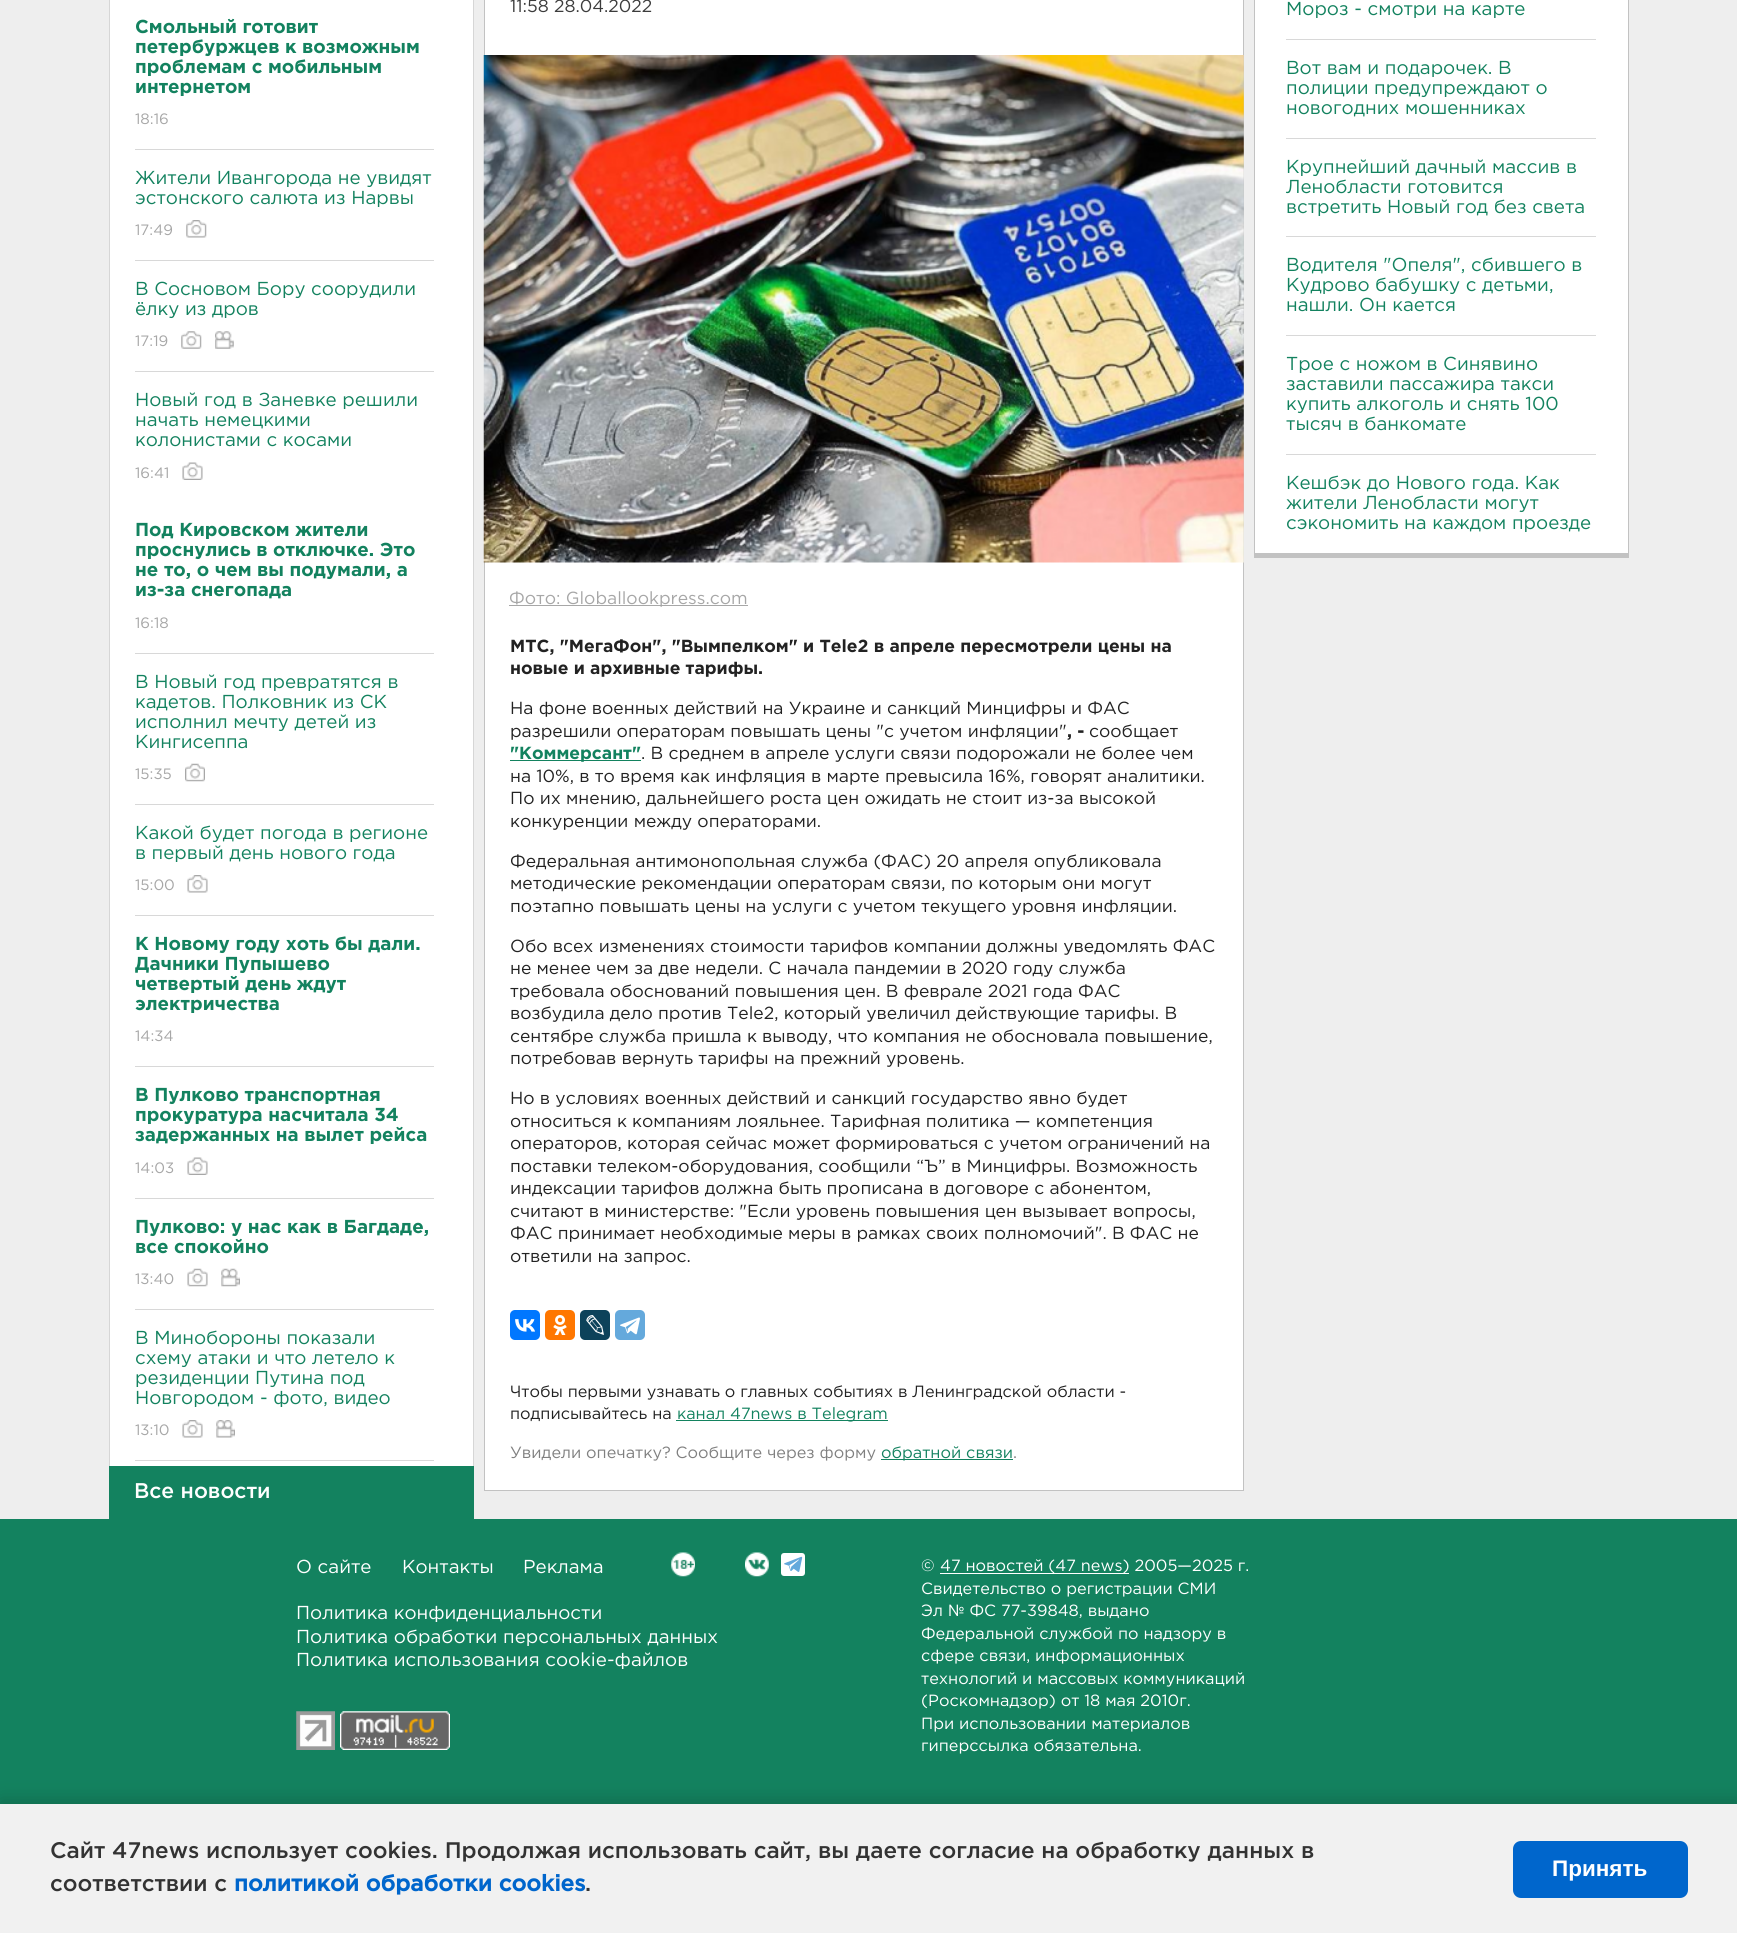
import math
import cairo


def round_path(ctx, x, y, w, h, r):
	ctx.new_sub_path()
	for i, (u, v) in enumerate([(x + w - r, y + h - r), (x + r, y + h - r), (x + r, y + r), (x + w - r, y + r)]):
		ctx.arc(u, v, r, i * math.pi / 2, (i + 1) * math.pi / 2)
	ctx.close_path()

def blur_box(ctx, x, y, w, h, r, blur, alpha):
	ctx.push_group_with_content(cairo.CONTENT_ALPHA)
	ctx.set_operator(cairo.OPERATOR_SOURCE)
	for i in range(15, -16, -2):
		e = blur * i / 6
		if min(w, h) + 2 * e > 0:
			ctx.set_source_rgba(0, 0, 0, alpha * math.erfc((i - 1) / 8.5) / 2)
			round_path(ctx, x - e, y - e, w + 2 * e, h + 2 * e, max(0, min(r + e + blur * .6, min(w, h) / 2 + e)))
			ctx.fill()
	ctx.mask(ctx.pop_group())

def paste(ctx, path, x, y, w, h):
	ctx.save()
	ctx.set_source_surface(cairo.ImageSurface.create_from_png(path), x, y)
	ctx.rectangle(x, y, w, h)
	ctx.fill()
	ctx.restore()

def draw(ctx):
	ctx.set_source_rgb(0.933, 0.933, 0.933)
	ctx.paint()
	ctx.set_source_rgb(1, 1, 1)
	ctx.rectangle(110, 0, 363, 1466)
	ctx.fill()
	ctx.set_source_rgb(0.839, 0.839, 0.839)
	ctx.rectangle(473, 0, 1, 1466)
	ctx.rectangle(109, 0, 1, 1466)
	ctx.fill()
	ctx.set_source_rgb(0.847, 0.847, 0.847)
	ctx.rectangle(135, 149, 299, 1)
	ctx.fill()
	ctx.select_font_face('Gotham', cairo.FONT_SLANT_NORMAL, cairo.FONT_WEIGHT_BOLD)
	ctx.set_font_size(18.75)
	ctx.set_source_rgb(0.075, 0.51, 0.373)
	for x, y, s in [
		(135, 33, 'Смольный готовит'),
		(135, 53, 'петербуржцев к возможным'),
		(135, 73, 'проблемам с мобильным'),
		(135, 93, 'интернетом'),
	]:
		ctx.move_to(x, y)
		ctx.show_text(s)
	ctx.select_font_face('Gotham')
	ctx.set_font_size(15)
	ctx.set_source_rgb(0.655, 0.655, 0.655)
	ctx.move_to(135, 124)
	ctx.show_text('18:16')
	ctx.set_source_rgb(0.847, 0.847, 0.847)
	ctx.rectangle(135, 260, 299, 1)
	ctx.fill()
	ctx.set_font_size(18.75)
	ctx.set_source_rgb(0.075, 0.51, 0.373)
	ctx.move_to(135, 184)
	ctx.show_text('Жители Ивангорода не увидят')
	ctx.move_to(135, 204)
	ctx.show_text('эстонского салюта из Нарвы')
	ctx.set_font_size(15)
	ctx.set_source_rgb(0.655, 0.655, 0.655)
	ctx.move_to(135, 235)
	ctx.show_text('17:49')
	paste(ctx, 'media/1.png', 186, 220, 21, 18)
	ctx.set_source_rgb(0.847, 0.847, 0.847)
	ctx.rectangle(135, 371, 299, 1)
	ctx.fill()
	ctx.set_font_size(18.75)
	ctx.set_source_rgb(0.075, 0.51, 0.373)
	ctx.move_to(135, 295)
	ctx.show_text('В Сосновом Бору соорудили')
	ctx.move_to(135, 315)
	ctx.show_text('ёлку из дров')
	ctx.set_font_size(15)
	ctx.set_source_rgb(0.655, 0.655, 0.655)
	ctx.move_to(135, 346)
	ctx.show_text('17:19')
	paste(ctx, 'media/2.png', 181, 331, 21, 18)
	paste(ctx, 'media/3.png', 215, 331, 19, 18)
	ctx.set_font_size(18.75)
	ctx.set_source_rgb(0.075, 0.51, 0.373)
	for x, y, s in [
		(135, 406, 'Новый год в Заневке решили'),
		(135, 426, 'начать немецкими'),
		(135, 446, 'колонистами с косами'),
	]:
		ctx.move_to(x, y)
		ctx.show_text(s)
	ctx.set_font_size(15)
	ctx.set_source_rgb(0.655, 0.655, 0.655)
	ctx.move_to(135, 478)
	ctx.show_text('16:41')
	paste(ctx, 'media/4.png', 182, 462, 21, 18)
	ctx.set_source_rgb(0.847, 0.847, 0.847)
	ctx.rectangle(135, 653, 299, 1)
	ctx.fill()
	ctx.select_font_face('Gotham', cairo.FONT_SLANT_NORMAL, cairo.FONT_WEIGHT_BOLD)
	ctx.set_font_size(18.75)
	ctx.set_source_rgb(0.075, 0.51, 0.373)
	for x, y, s in [
		(135, 536, 'Под Кировском жители'),
		(135, 556, 'проснулись в отключке. Это'),
		(135, 576, 'не то, о чем вы подумали, а'),
		(135, 596, 'из-за снегопада'),
	]:
		ctx.move_to(x, y)
		ctx.show_text(s)
	ctx.select_font_face('Gotham')
	ctx.set_font_size(15)
	ctx.set_source_rgb(0.655, 0.655, 0.655)
	ctx.move_to(135, 628)
	ctx.show_text('16:18')
	ctx.set_source_rgb(0.847, 0.847, 0.847)
	ctx.rectangle(135, 804, 299, 1)
	ctx.fill()
	ctx.set_font_size(18.75)
	ctx.set_source_rgb(0.075, 0.51, 0.373)
	for x, y, s in [
		(135, 688, 'В Новый год превратятся в'),
		(135, 708, 'кадетов. Полковник из СК'),
		(135, 728, 'исполнил мечту детей из'),
		(135, 748, 'Кингисеппа'),
	]:
		ctx.move_to(x, y)
		ctx.show_text(s)
	ctx.set_font_size(15)
	ctx.set_source_rgb(0.655, 0.655, 0.655)
	ctx.move_to(135, 779)
	ctx.show_text('15:35')
	paste(ctx, 'media/5.png', 185, 763, 20, 19)
	ctx.set_source_rgb(0.847, 0.847, 0.847)
	ctx.rectangle(135, 915, 299, 1)
	ctx.fill()
	ctx.set_font_size(18.75)
	ctx.set_source_rgb(0.075, 0.51, 0.373)
	ctx.move_to(135, 839)
	ctx.show_text('Какой будет погода в регионе')
	ctx.move_to(135, 859)
	ctx.show_text('в первый день нового года')
	ctx.set_font_size(15)
	ctx.set_source_rgb(0.655, 0.655, 0.655)
	ctx.move_to(135, 890)
	ctx.show_text('15:00')
	paste(ctx, 'media/6.png', 187, 875, 21, 18)
	ctx.set_source_rgb(0.847, 0.847, 0.847)
	ctx.rectangle(135, 1066, 299, 1)
	ctx.fill()
	ctx.select_font_face('Gotham', cairo.FONT_SLANT_NORMAL, cairo.FONT_WEIGHT_BOLD)
	ctx.set_font_size(18.75)
	ctx.set_source_rgb(0.075, 0.51, 0.373)
	for x, y, s in [
		(135, 950, 'К Новому году хоть бы дали.'),
		(135, 970, 'Дачники Пупышево'),
		(135, 990, 'четвертый день ждут'),
		(135, 1010, 'электричества'),
	]:
		ctx.move_to(x, y)
		ctx.show_text(s)
	ctx.select_font_face('Gotham')
	ctx.set_font_size(15)
	ctx.set_source_rgb(0.655, 0.655, 0.655)
	ctx.move_to(135, 1041)
	ctx.show_text('14:34')
	ctx.set_source_rgb(0.847, 0.847, 0.847)
	ctx.rectangle(135, 1198, 299, 1)
	ctx.fill()
	ctx.select_font_face('Gotham', cairo.FONT_SLANT_NORMAL, cairo.FONT_WEIGHT_BOLD)
	ctx.set_font_size(18.75)
	ctx.set_source_rgb(0.075, 0.51, 0.373)
	for x, y, s in [
		(135, 1101, 'В Пулково транспортная'),
		(135, 1121, 'прокуратура насчитала 34'),
		(135, 1141, 'задержанных на вылет рейса'),
	]:
		ctx.move_to(x, y)
		ctx.show_text(s)
	ctx.select_font_face('Gotham')
	ctx.set_font_size(15)
	ctx.set_source_rgb(0.655, 0.655, 0.655)
	ctx.move_to(135, 1173)
	ctx.show_text('14:03')
	paste(ctx, 'media/4.png', 187, 1157, 21, 18)
	ctx.set_source_rgb(0.847, 0.847, 0.847)
	ctx.rectangle(135, 1309, 299, 1)
	ctx.fill()
	ctx.select_font_face('Gotham', cairo.FONT_SLANT_NORMAL, cairo.FONT_WEIGHT_BOLD)
	ctx.set_font_size(18.75)
	ctx.set_source_rgb(0.075, 0.51, 0.373)
	ctx.move_to(135, 1233)
	ctx.show_text('Пулково: у нас как в Багдаде,')
	ctx.move_to(135, 1253)
	ctx.show_text('все спокойно')
	ctx.select_font_face('Gotham')
	ctx.set_font_size(15)
	ctx.set_source_rgb(0.655, 0.655, 0.655)
	ctx.move_to(135, 1284)
	ctx.show_text('13:40')
	paste(ctx, 'media/7.png', 187, 1268, 21, 19)
	paste(ctx, 'media/8.png', 221, 1268, 19, 19)
	ctx.set_source_rgb(0.847, 0.847, 0.847)
	ctx.rectangle(135, 1460, 299, 1)
	ctx.fill()
	ctx.set_font_size(18.75)
	ctx.set_source_rgb(0.075, 0.51, 0.373)
	for x, y, s in [
		(135, 1344, 'В Минобороны показали'),
		(135, 1364, 'схему атаки и что летело к'),
		(135, 1384, 'резиденции Путина под'),
		(135, 1404, 'Новгородом - фото, видео'),
	]:
		ctx.move_to(x, y)
		ctx.show_text(s)
	ctx.set_font_size(15)
	ctx.set_source_rgb(0.655, 0.655, 0.655)
	ctx.move_to(135, 1435)
	ctx.show_text('13:10')
	paste(ctx, 'media/6.png', 182, 1420, 21, 18)
	paste(ctx, 'media/9.png', 216, 1420, 19, 18)
	ctx.set_source_rgb(0.075, 0.51, 0.373)
	ctx.rectangle(109, 1466, 365, 53)
	ctx.fill()
	ctx.select_font_face('Gotham Medium')
	ctx.set_font_size(21.25)
	ctx.set_source_rgb(1, 1, 1)
	ctx.move_to(134, 1498)
	ctx.show_text('Все новости')
	ctx.rectangle(484.5, -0.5, 759, 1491)
	ctx.fill_preserve()
	ctx.set_source_rgb(0.761, 0.761, 0.761)
	ctx.set_line_width(1)
	ctx.stroke()
	ctx.select_font_face('Gotham')
	ctx.set_font_size(17.5)
	ctx.set_source_rgb(0.235, 0.235, 0.235)
	ctx.move_to(510, 12)
	ctx.show_text('11:58 28.04.2022')
	paste(ctx, 'media/10.png', 483, 55, 761, 508)
	ctx.set_source_rgb(0.655, 0.655, 0.655)
	ctx.rectangle(509, 605, 239, 1)
	ctx.fill()
	ctx.move_to(509, 604)
	ctx.show_text('Фото: Globallookpress.com')
	ctx.select_font_face('Gotham', cairo.FONT_SLANT_NORMAL, cairo.FONT_WEIGHT_BOLD)
	ctx.set_source_rgb(0.133, 0.133, 0.133)
	ctx.move_to(510, 652)
	ctx.show_text('МТС, "МегаФон", "Вымпелком" и Tele2 в апреле пересмотрели цены на')
	ctx.move_to(510, 674)
	ctx.show_text('новые и архивные тарифы.')
	ctx.select_font_face('Gotham')
	ctx.move_to(510, 714)
	ctx.show_text('На фоне военных действий на Украине и санкций Минцифры и ФАС')
	ctx.move_to(510, 737)
	ctx.show_text('разрешили операторам повышать цены "с учетом инфляции"')
	ctx.select_font_face('Gotham', cairo.FONT_SLANT_NORMAL, cairo.FONT_WEIGHT_BOLD)
	ctx.move_to(1067, 737)
	ctx.show_text(', -')
	ctx.select_font_face('Gotham')
	ctx.move_to(1089, 737)
	ctx.show_text('сообщает')
	ctx.set_source_rgb(0.075, 0.51, 0.373)
	ctx.rectangle(510, 760, 131, 1)
	ctx.fill()
	ctx.select_font_face('Gotham', cairo.FONT_SLANT_NORMAL, cairo.FONT_WEIGHT_BOLD)
	ctx.move_to(510, 759)
	ctx.show_text('"Коммерсант"')
	ctx.select_font_face('Gotham')
	ctx.set_source_rgb(0.133, 0.133, 0.133)
	for x, y, s in [
		(641, 759, '. В среднем в апреле услуги связи подорожали не более чем'),
		(510, 782, 'на 10%, в то время как инфляция в марте превысила 16%, говорят аналитики.'),
		(510, 804, 'По их мнению, дальнейшего роста цен ожидать не стоит из-за высокой'),
		(510, 827, 'конкуренции между операторами.'),
		(510, 867, 'Федеральная антимонопольная служба (ФАС) 20 апреля опубликовала'),
		(510, 889, 'методические рекомендации операторам связи, по которым они могут'),
		(510, 912, 'поэтапно повышать цены на услуги с учетом текущего уровня инфляции.'),
		(510, 952, 'Обо всех изменениях стоимости тарифов компании должны уведомлять ФАС'),
		(510, 974, 'не менее чем за две недели. С начала пандемии в 2020 году служба'),
		(510, 997, 'требовала обоснований повышения цен. В феврале 2021 года ФАС'),
		(510, 1019, 'возбудила дело против Tele2, который увеличил действующие тарифы. В'),
		(510, 1042, 'сентябре служба пришла к выводу, что компания не обосновала повышение,'),
		(510, 1064, 'потребовав вернуть тарифы на прежний уровень.'),
		(510, 1104, 'Но в условиях военных действий и санкций государство явно будет'),
		(510, 1127, 'относиться к компаниям лояльнее. Тарифная политика — компетенция'),
		(510, 1149, 'операторов, которая сейчас может формироваться с учетом ограничений на'),
		(510, 1172, 'поставки телеком-оборудования, сообщили “Ъ” в Минцифры. Возможность'),
		(510, 1194, 'индексации тарифов должна быть прописана в договоре с абонентом,'),
		(510, 1217, 'считают в министерстве: "Если уровень повышения цен вызывает вопросы,'),
		(510, 1239, 'ФАС принимает необходимые меры в рамках своих полномочий". В ФАС не'),
		(510, 1262, 'ответили на запрос.'),
	]:
		ctx.move_to(x, y)
		ctx.show_text(s)
	ctx.set_source_rgb(0, 0.467, 1)
	round_path(ctx, 510, 1310, 30, 30, 5)
	ctx.fill()
	paste(ctx, 'media/11.png', 515, 1319, 20, 13)
	ctx.set_source_rgb(1, 0.467, 0)
	round_path(ctx, 545, 1310, 30, 30, 5)
	ctx.fill()
	paste(ctx, 'media/12.png', 553, 1315, 14, 20)
	ctx.set_source_rgb(0.051, 0.259, 0.353)
	round_path(ctx, 580, 1310, 30, 30, 5)
	ctx.fill()
	paste(ctx, 'media/13.png', 586, 1315, 18, 20)
	ctx.set_source_rgb(0.392, 0.663, 0.863)
	round_path(ctx, 615, 1310, 30, 30, 5)
	ctx.fill()
	paste(ctx, 'media/14.png', 620, 1317, 20, 18)
	ctx.set_font_size(16.25)
	ctx.set_source_rgb(0.133, 0.133, 0.133)
	ctx.move_to(510, 1397)
	ctx.show_text('Чтобы первыми узнавать о главных событиях в Ленинградской области -')
	ctx.move_to(510, 1419)
	ctx.show_text('подписывайтесь на')
	ctx.set_source_rgb(0.075, 0.51, 0.373)
	ctx.rectangle(676, 1420, 212, 1)
	ctx.fill()
	ctx.move_to(677, 1419)
	ctx.show_text('канал 47news в Telegram')
	ctx.set_source_rgb(0.502, 0.502, 0.502)
	ctx.move_to(510, 1458)
	ctx.show_text('Увидели опечатку? Сообщите через форму')
	ctx.set_source_rgb(0.075, 0.51, 0.373)
	ctx.rectangle(881, 1459, 132, 1)
	ctx.fill()
	ctx.move_to(881, 1458)
	ctx.show_text('обратной связи')
	ctx.set_source_rgb(0.502, 0.502, 0.502)
	ctx.move_to(1013, 1458)
	ctx.show_text('.')
	ctx.set_source_rgb(1, 1, 1)
	ctx.rectangle(1255, 0, 373, 553)
	ctx.fill()
	ctx.set_source_rgb(0.761, 0.761, 0.761)
	ctx.rectangle(1628, 0, 1, 558)
	ctx.rectangle(1254, 553, 375, 5)
	ctx.rectangle(1254, 0, 1, 558)
	ctx.fill()
	ctx.set_source_rgb(0.847, 0.847, 0.847)
	ctx.rectangle(1286, 39, 310, 1)
	ctx.fill()
	ctx.set_font_size(18.75)
	ctx.set_source_rgb(0.075, 0.51, 0.373)
	ctx.move_to(1286, 15)
	ctx.show_text('Мороз - смотри на карте')
	ctx.set_source_rgb(0.847, 0.847, 0.847)
	ctx.rectangle(1286, 138, 310, 1)
	ctx.fill()
	ctx.set_source_rgb(0.075, 0.51, 0.373)
	for x, y, s in [
		(1286, 74, 'Вот вам и подарочек. В'),
		(1286, 94, 'полиции предупреждают о'),
		(1286, 114, 'новогодних мошенниках'),
	]:
		ctx.move_to(x, y)
		ctx.show_text(s)
	ctx.set_source_rgb(0.847, 0.847, 0.847)
	ctx.rectangle(1286, 236, 310, 1)
	ctx.fill()
	ctx.set_source_rgb(0.075, 0.51, 0.373)
	for x, y, s in [
		(1286, 173, 'Крупнейший дачный массив в'),
		(1286, 193, 'Ленобласти готовится'),
		(1286, 213, 'встретить Новый год без света'),
	]:
		ctx.move_to(x, y)
		ctx.show_text(s)
	ctx.set_source_rgb(0.847, 0.847, 0.847)
	ctx.rectangle(1286, 335, 310, 1)
	ctx.fill()
	ctx.set_source_rgb(0.075, 0.51, 0.373)
	for x, y, s in [
		(1286, 271, 'Водителя "Опеля", сбившего в'),
		(1286, 291, 'Кудрово бабушку с детьми,'),
		(1286, 311, 'нашли. Он кается'),
	]:
		ctx.move_to(x, y)
		ctx.show_text(s)
	ctx.set_source_rgb(0.847, 0.847, 0.847)
	ctx.rectangle(1286, 454, 310, 1)
	ctx.fill()
	ctx.set_source_rgb(0.075, 0.51, 0.373)
	for x, y, s in [
		(1286, 370, 'Трое с ножом в Синявино'),
		(1286, 390, 'заставили пассажира такси'),
		(1286, 410, 'купить алкоголь и снять 100'),
		(1286, 430, 'тысяч в банкомате'),
		(1286, 489, 'Кешбэк до Нового года. Как'),
		(1286, 509, 'жители Ленобласти могут'),
		(1286, 529, 'сэкономить на каждом проезде'),
	]:
		ctx.move_to(x, y)
		ctx.show_text(s)
	ctx.rectangle(0, 1519, 1737, 285)
	ctx.fill()
	ctx.set_source_rgb(1, 1, 1)
	for x, y, s in [
		(296, 1573, 'О сайте'),
		(402, 1573, 'Контакты'),
		(523, 1573, 'Реклама'),
		(296, 1619, 'Политика конфиденциальности'),
		(296, 1643, 'Политика обработки персональных данных'),
		(296, 1666, 'Политика использования cookie-файлов'),
	]:
		ctx.move_to(x, y)
		ctx.show_text(s)
	paste(ctx, 'media/15.png', 671, 1552, 24, 25)
	paste(ctx, 'media/16.png', 745, 1552, 24, 25)
	paste(ctx, 'media/17.png', 781, 1553, 24, 23)
	paste(ctx, 'media/18.png', 296, 1711, 39, 39)
	paste(ctx, 'media/19.png', 340, 1711, 110, 39)
	ctx.set_font_size(16.25)
	ctx.move_to(921, 1571)
	ctx.show_text('©')
	ctx.rectangle(940, 1573, 189, 1)
	ctx.fill()
	for x, y, s in [
		(940, 1571, '47 новостей (47 news) 2005—2025 г.'),
		(921, 1594, 'Свидетельство о регистрации СМИ'),
		(921, 1616, 'Эл № ФС 77-39848, выдано'),
		(921, 1639, 'Федеральной службой по надзору в'),
		(921, 1661, 'сфере связи, информационных'),
		(921, 1684, 'технологий и массовых коммуникаций'),
		(921, 1706, '(Роскомнадзор) от 18 мая 2010г.'),
		(921, 1729, 'При использовании материалов'),
		(921, 1751, 'гиперссылка обязательна.'),
	]:
		ctx.move_to(x, y)
		ctx.show_text(s)
	ctx.set_source_rgb(0, 0, 0)
	blur_box(ctx, 0, 1801, 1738, 130, 0, 9.5, 0.2)
	ctx.set_source_rgb(0.945, 0.945, 0.945)
	ctx.rectangle(0, 1804, 1737, 129)
	ctx.fill()
	ctx.select_font_face('Gotham Medium')
	ctx.set_font_size(22.5)
	ctx.set_source_rgb(0.2, 0.2, 0.2)
	ctx.move_to(50, 1858)
	ctx.show_text('Сайт 47news использует cookies. Продолжая использовать сайт, вы даете согласие на обработку данных в')
	ctx.move_to(50, 1891)
	ctx.show_text('соответствии с')
	ctx.select_font_face('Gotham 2', cairo.FONT_SLANT_NORMAL, cairo.FONT_WEIGHT_BOLD)
	ctx.set_source_rgb(0, 0.4, 0.8)
	ctx.move_to(234, 1891)
	ctx.show_text('политикой обработки cookies')
	ctx.select_font_face('Gotham Medium')
	ctx.set_source_rgb(0.2, 0.2, 0.2)
	ctx.move_to(585, 1891)
	ctx.show_text('.')
	ctx.set_source_rgb(0, 0.4, 0.8)
	round_path(ctx, 1513, 1841, 175, 57, 8)
	ctx.fill()
	ctx.select_font_face('Liberation Sans', cairo.FONT_SLANT_NORMAL, cairo.FONT_WEIGHT_BOLD)
	ctx.set_source_rgb(1, 1, 1)
	ctx.move_to(1552, 1876)
	ctx.show_text('Принять')


surface = cairo.ImageSurface(cairo.FORMAT_RGB24, 1737, 1933)
ctx = cairo.Context(surface)
options = cairo.FontOptions()
options.set_hint_metrics(cairo.HINT_METRICS_OFF)
options.set_hint_style(cairo.HINT_STYLE_NONE)
ctx.set_font_options(options)
ctx.set_miter_limit(4)
draw(ctx)
surface.write_to_png('image.png')
